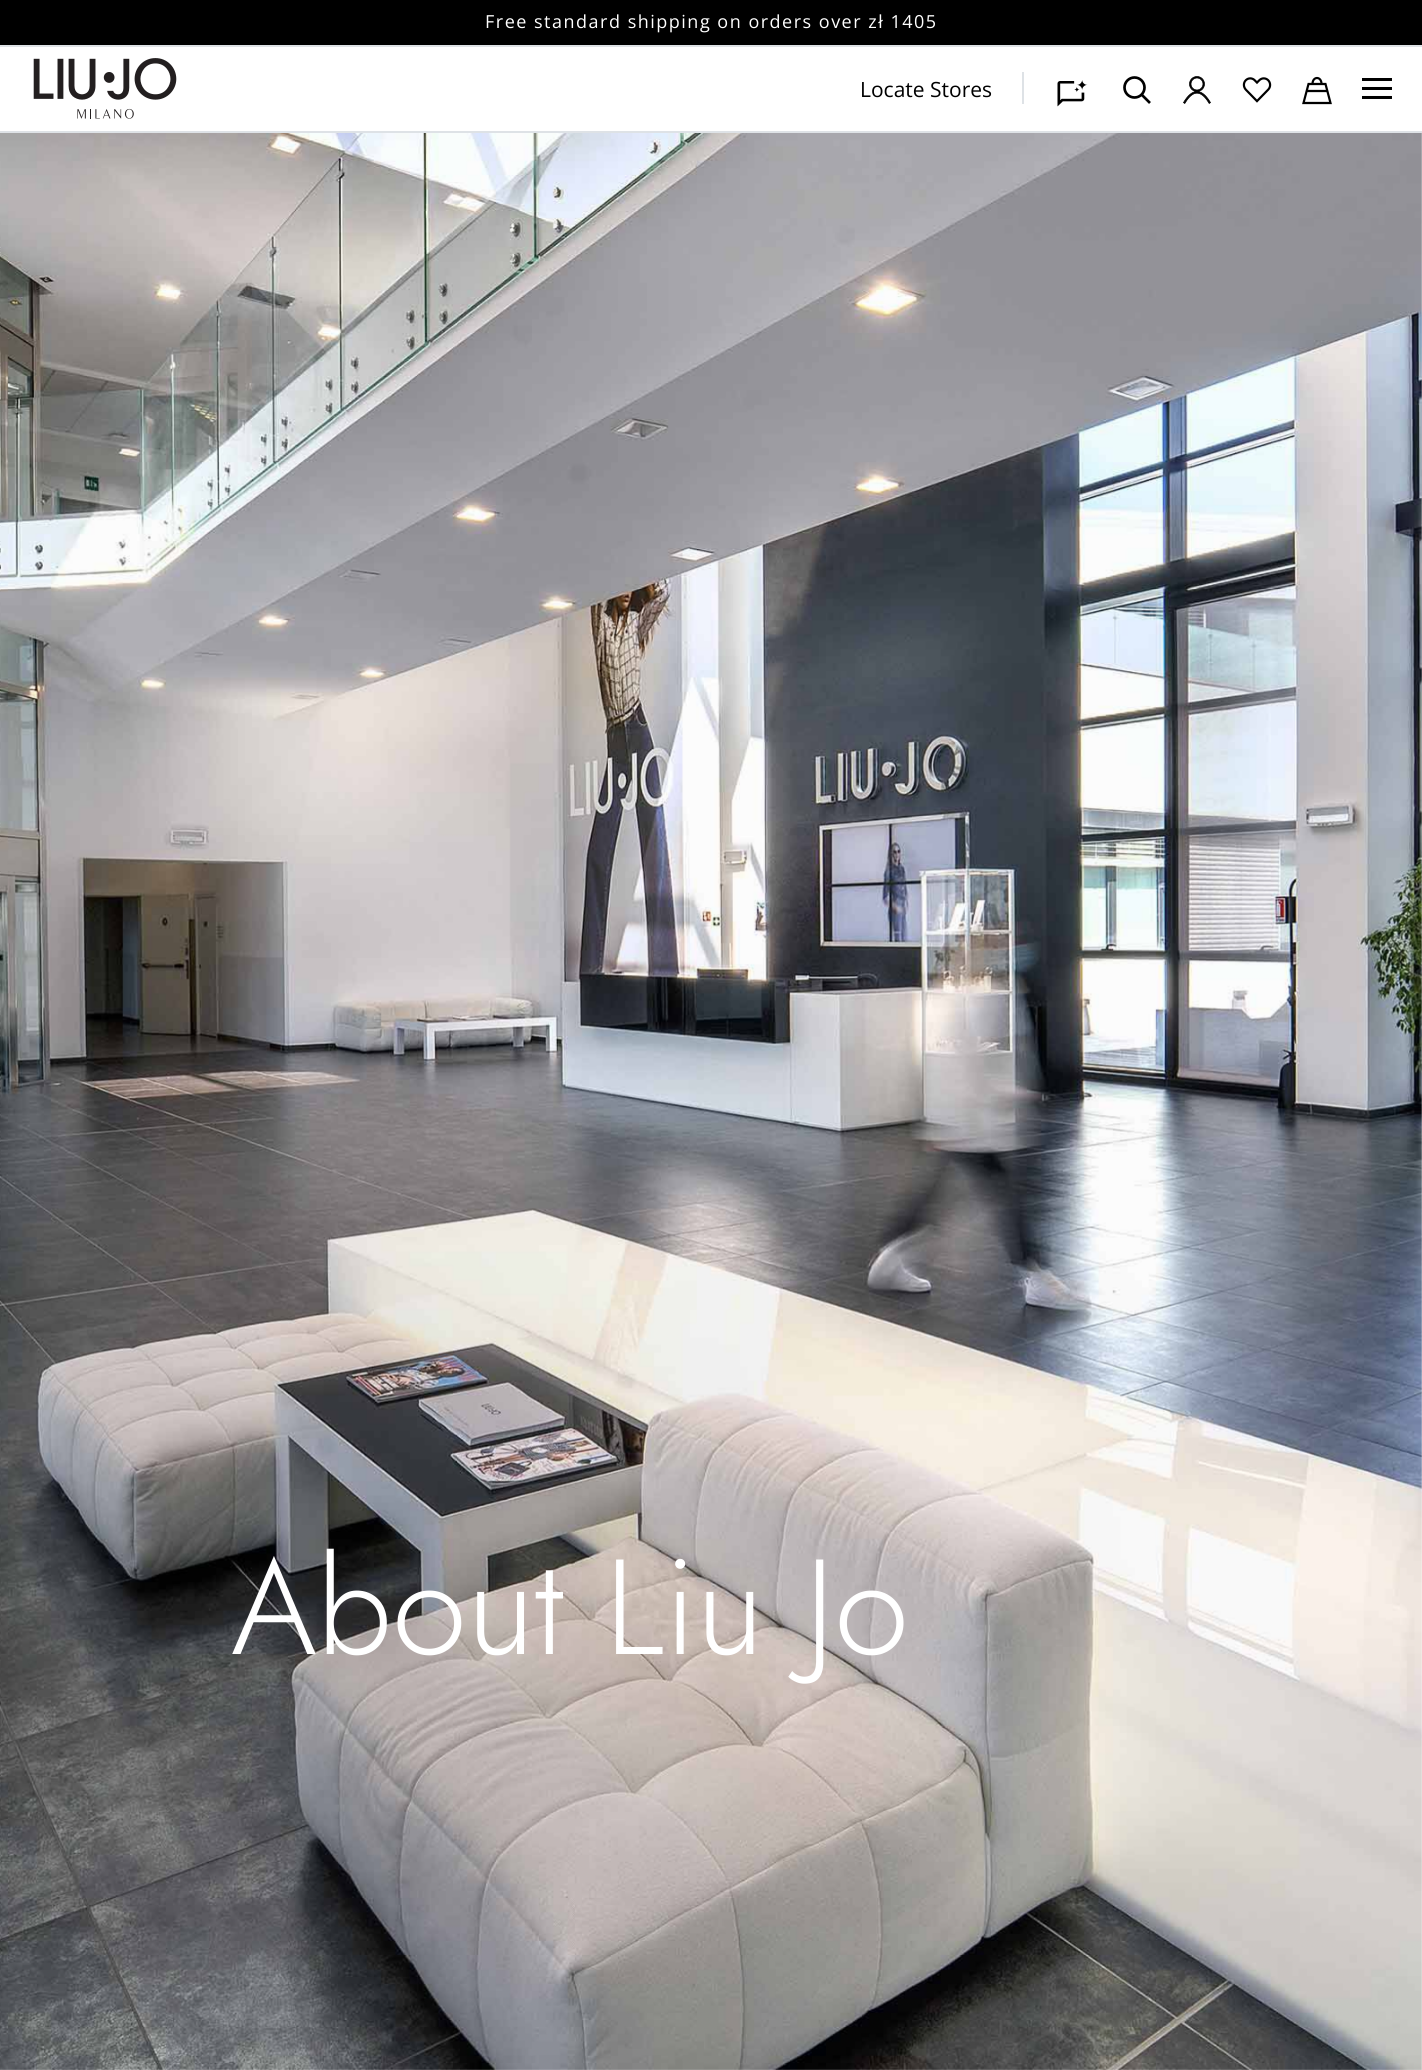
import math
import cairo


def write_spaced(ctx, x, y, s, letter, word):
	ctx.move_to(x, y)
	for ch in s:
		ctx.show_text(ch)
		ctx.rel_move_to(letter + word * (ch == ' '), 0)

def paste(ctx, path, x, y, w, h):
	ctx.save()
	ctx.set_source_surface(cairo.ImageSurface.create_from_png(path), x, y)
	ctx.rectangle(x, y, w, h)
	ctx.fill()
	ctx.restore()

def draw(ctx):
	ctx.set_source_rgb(1, 1, 1)
	ctx.paint()
	ctx.set_source_rgb(0, 0, 0)
	ctx.rectangle(0, 0, 1422, 45)
	ctx.fill()
	ctx.set_source_rgb(0.871, 0.886, 0.902)
	ctx.rectangle(0, 45, 1422, 2)
	ctx.fill()
	ctx.select_font_face('Open Sans')
	ctx.set_font_size(18)
	ctx.set_source_rgb(1, 1, 1)
	write_spaced(ctx, 485, 28, 'Free standard shipping on orders over zł 1405', 1.5, 0)
	ctx.set_source_rgb(0.871, 0.886, 0.902)
	ctx.rectangle(0, 131, 1422, 2)
	ctx.fill()
	paste(ctx, 'media/1.png', 33, 58, 144, 61)
	ctx.rectangle(1022, 72, 2, 32)
	ctx.fill()
	ctx.set_font_size(21)
	ctx.set_source_rgb(0, 0, 0)
	ctx.move_to(860, 97)
	ctx.show_text('Locate Stores')
	paste(ctx, 'media/2.png', 1057, 80, 31, 27)
	ctx.arc(1134.5, 87.5, 10, 0, 2 * math.pi)
	ctx.set_line_width(2.7)
	ctx.stroke()
	ctx.new_path()
	ctx.move_to(1141, 94)
	ctx.line_to(1150, 103)
	ctx.stroke()
	paste(ctx, 'media/3.png', 1183, 76, 28, 28)
	paste(ctx, 'media/4.png', 1242, 77, 30, 26)
	ctx.new_path()
	ctx.move_to(1312.5, 84)
	ctx.curve_to(1312.5, 76, 1321.5, 76, 1321.5, 84)
	ctx.move_to(1325.5, 84)
	ctx.line_to(1308.5, 84)
	ctx.line_to(1303.5, 103)
	ctx.line_to(1330.5, 103)
	ctx.close_path()
	ctx.move_to(1307.5, 91)
	ctx.line_to(1327, 91)
	ctx.set_line_width(2.2)
	ctx.stroke()
	paste(ctx, 'media/5.png', 1362, 78, 30, 21)
	ctx.set_source_rgb(0.973, 0.976, 0.98)
	ctx.rectangle(0, 133, 1422, 1937)
	ctx.fill()
	paste(ctx, 'media/6.png', 0, 133, 1422, 1937)
	ctx.select_font_face('Jost Light')
	ctx.set_font_size(135)
	ctx.set_source_rgb(1, 1, 1)
	ctx.move_to(231, 1654)
	ctx.show_text('About Liu Jo')


surface = cairo.ImageSurface(cairo.FORMAT_RGB24, 1422, 2070)
ctx = cairo.Context(surface)
options = cairo.FontOptions()
options.set_hint_metrics(cairo.HINT_METRICS_OFF)
options.set_hint_style(cairo.HINT_STYLE_NONE)
ctx.set_font_options(options)
ctx.set_miter_limit(4)
draw(ctx)
surface.write_to_png('image.png')
